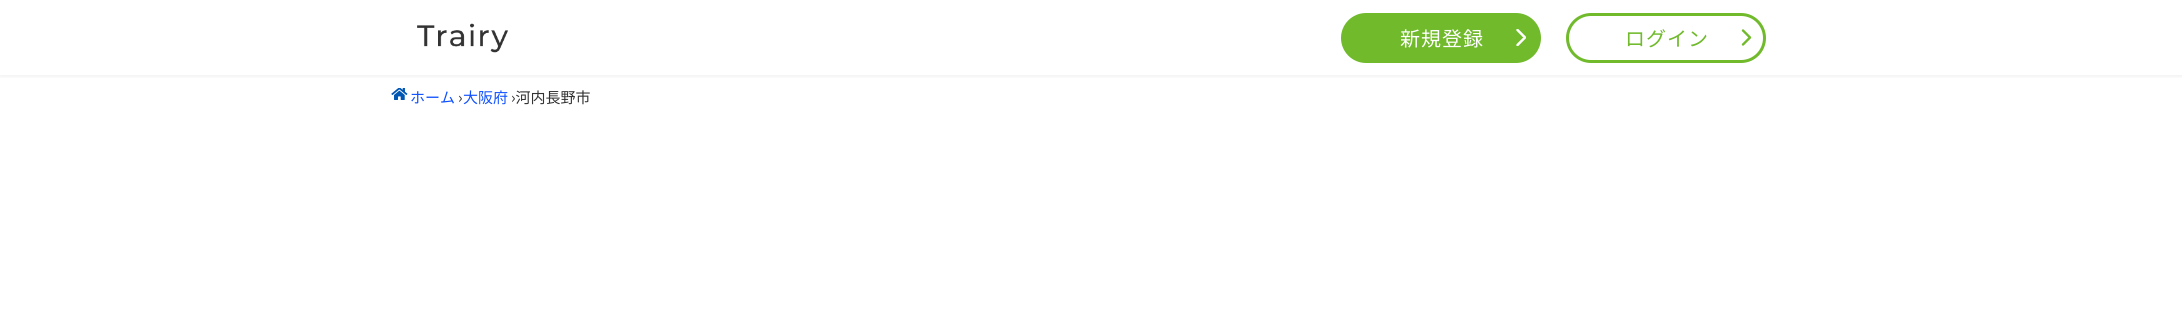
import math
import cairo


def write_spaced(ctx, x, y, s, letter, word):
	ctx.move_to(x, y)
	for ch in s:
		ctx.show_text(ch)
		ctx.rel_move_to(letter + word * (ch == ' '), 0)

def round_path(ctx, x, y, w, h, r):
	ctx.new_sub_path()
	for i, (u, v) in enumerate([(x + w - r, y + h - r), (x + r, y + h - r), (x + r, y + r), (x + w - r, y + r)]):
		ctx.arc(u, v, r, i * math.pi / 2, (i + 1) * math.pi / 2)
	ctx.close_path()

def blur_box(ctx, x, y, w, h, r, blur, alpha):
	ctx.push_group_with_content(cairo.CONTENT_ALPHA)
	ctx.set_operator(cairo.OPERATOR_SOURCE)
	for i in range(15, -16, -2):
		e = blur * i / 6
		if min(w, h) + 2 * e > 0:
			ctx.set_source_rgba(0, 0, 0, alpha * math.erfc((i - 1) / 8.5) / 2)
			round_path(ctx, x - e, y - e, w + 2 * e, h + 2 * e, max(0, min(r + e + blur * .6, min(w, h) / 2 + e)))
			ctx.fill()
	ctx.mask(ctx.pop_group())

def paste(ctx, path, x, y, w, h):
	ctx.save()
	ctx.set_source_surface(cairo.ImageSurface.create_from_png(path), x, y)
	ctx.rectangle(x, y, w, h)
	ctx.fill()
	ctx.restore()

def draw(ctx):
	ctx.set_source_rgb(1, 1, 1)
	ctx.paint()
	ctx.save()
	ctx.rectangle(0, 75, 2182, 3)
	ctx.clip()
	ctx.set_source_rgb(0, 0, 0)
	blur_box(ctx, 0, 0, 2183, 75, 0, 3, 0.1)
	ctx.restore()
	paste(ctx, 'media/1.png', 417, 23, 91, 30)
	ctx.set_source_rgb(0.439, 0.729, 0.173)
	round_path(ctx, 1342.5, 14.5, 197, 47, 23.5)
	ctx.fill_preserve()
	ctx.set_line_width(3)
	ctx.stroke()
	ctx.select_font_face('Noto Sans JP')
	ctx.set_font_size(20)
	ctx.set_source_rgb(1, 1, 1)
	write_spaced(ctx, 1400, 46, '新規登録', 1, 0)
	paste(ctx, 'media/2.png', 1516, 29, 10, 17)
	round_path(ctx, 1567.5, 14.5, 197, 47, 23.5)
	ctx.set_source_rgb(0.439, 0.729, 0.173)
	ctx.stroke()
	write_spaced(ctx, 1625, 46, 'ログイン', 1, 0)
	ctx.new_path()
	ctx.move_to(1743, 44.5)
	ctx.line_to(1750, 37.5)
	ctx.line_to(1743, 30.5)
	ctx.set_line_width(2.4)
	ctx.set_line_cap(cairo.LINE_CAP_ROUND)
	ctx.set_line_join(cairo.LINE_JOIN_ROUND)
	ctx.stroke()
	paste(ctx, 'media/3.png', 391, 88, 17, 12)
	ctx.set_font_size(15)
	ctx.set_source_rgb(0.063, 0.318, 1)
	ctx.move_to(410, 103)
	ctx.show_text('ホーム')
	ctx.set_source_rgb(0.2, 0.2, 0.2)
	ctx.move_to(458, 103)
	ctx.show_text('›')
	ctx.set_source_rgb(0.063, 0.318, 1)
	ctx.move_to(463, 103)
	ctx.show_text('大阪府')
	ctx.set_source_rgb(0.2, 0.2, 0.2)
	ctx.move_to(511, 103)
	ctx.show_text('›河内長野市')


surface = cairo.ImageSurface(cairo.FORMAT_RGB24, 2182, 333)
ctx = cairo.Context(surface)
options = cairo.FontOptions()
options.set_hint_metrics(cairo.HINT_METRICS_OFF)
options.set_hint_style(cairo.HINT_STYLE_NONE)
ctx.set_font_options(options)
ctx.set_miter_limit(4)
draw(ctx)
surface.write_to_png('image.png')
